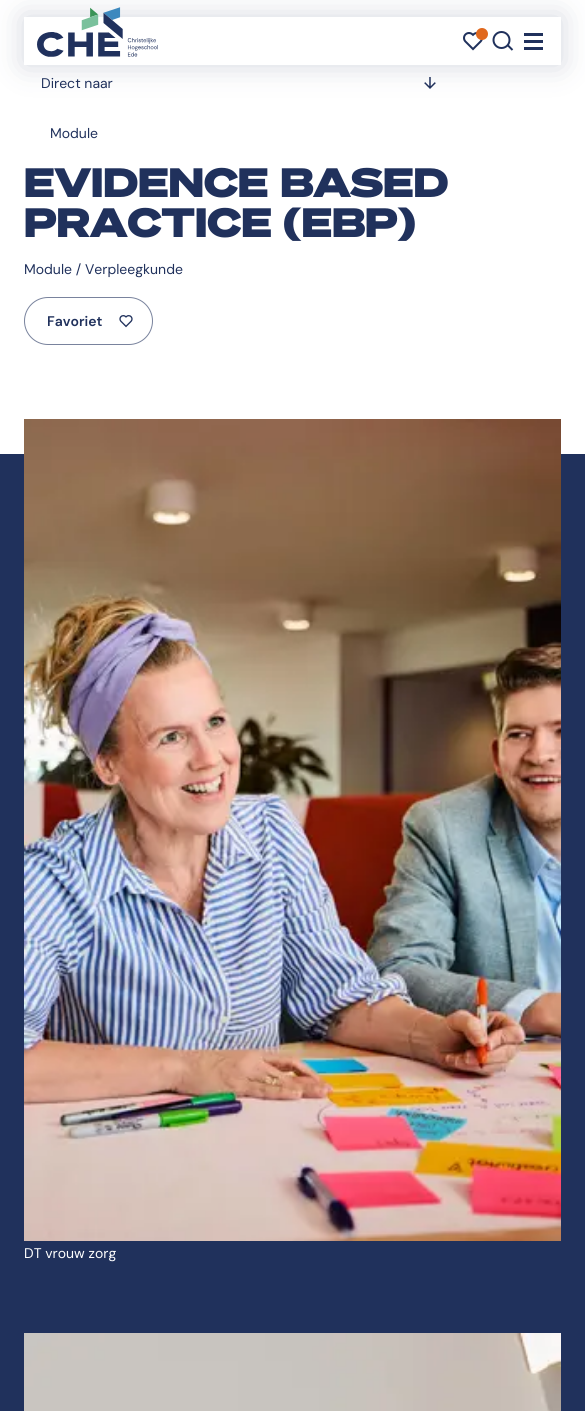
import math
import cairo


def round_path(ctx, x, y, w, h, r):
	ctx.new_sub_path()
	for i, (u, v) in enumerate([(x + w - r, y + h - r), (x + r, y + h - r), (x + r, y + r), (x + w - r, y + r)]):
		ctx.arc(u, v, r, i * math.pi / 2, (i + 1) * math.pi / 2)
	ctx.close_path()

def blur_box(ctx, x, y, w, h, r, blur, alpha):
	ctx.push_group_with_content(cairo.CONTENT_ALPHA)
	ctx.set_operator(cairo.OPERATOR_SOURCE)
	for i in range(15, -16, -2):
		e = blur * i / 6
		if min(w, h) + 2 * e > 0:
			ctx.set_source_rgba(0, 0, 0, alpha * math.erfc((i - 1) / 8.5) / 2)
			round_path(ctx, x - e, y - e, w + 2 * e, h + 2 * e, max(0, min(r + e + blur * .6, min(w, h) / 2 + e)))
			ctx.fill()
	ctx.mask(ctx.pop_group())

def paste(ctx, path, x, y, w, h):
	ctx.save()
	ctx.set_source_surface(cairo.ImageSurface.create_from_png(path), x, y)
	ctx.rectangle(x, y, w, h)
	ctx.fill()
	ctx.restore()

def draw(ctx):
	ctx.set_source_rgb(0.125, 0.192, 0.361)
	ctx.paint()
	ctx.set_source_rgb(1, 1, 1)
	ctx.rectangle(0, 0, 585, 454)
	ctx.fill()
	paste(ctx, 'media/3.png', 424, 77, 12, 12)
	ctx.save()
	ctx.set_fill_rule(cairo.FILL_RULE_EVEN_ODD)
	ctx.new_path()
	ctx.move_to(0, 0)
	ctx.line_to(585, 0)
	ctx.line_to(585, 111)
	ctx.line_to(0, 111)
	ctx.close_path()
	ctx.move_to(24, 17)
	ctx.line_to(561, 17)
	ctx.line_to(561, 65)
	ctx.line_to(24, 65)
	ctx.close_path()
	ctx.clip()
	ctx.set_source_rgb(0.125, 0.192, 0.361)
	blur_box(ctx, 24, 17, 537, 48, 0, 15, 0.2)
	ctx.restore()
	paste(ctx, 'media/1.png', 37, 7, 121, 50)
	paste(ctx, 'media/2.png', 463, 32, 20, 19)
	ctx.set_source_rgb(0.878, 0.408, 0.114)
	ctx.arc(482, 34, 6, 0, 2 * math.pi)
	ctx.fill()
	ctx.arc(501.5, 40, 8, 0, 2 * math.pi)
	ctx.set_source_rgb(0.125, 0.192, 0.361)
	ctx.stroke()
	ctx.new_path()
	ctx.move_to(507.5, 45)
	ctx.line_to(512.5, 50)
	ctx.stroke()
	ctx.rectangle(524, 33, 19, 3)
	ctx.rectangle(524, 40, 19, 3)
	ctx.rectangle(524, 47, 19, 3)
	ctx.fill()
	ctx.select_font_face('DM Sans')
	ctx.set_font_size(14)
	ctx.move_to(41, 88)
	ctx.show_text('Direct naar')
	ctx.move_to(50, 138)
	ctx.show_text('Module')
	ctx.select_font_face('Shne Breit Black')
	ctx.set_font_size(40)
	ctx.move_to(24, 197)
	ctx.show_text('EVIDENCE BASED')
	ctx.move_to(24, 237)
	ctx.show_text('PRACTICE (EBP)')
	ctx.select_font_face('DM Sans')
	ctx.set_font_size(14)
	ctx.move_to(24, 274)
	ctx.show_text('Module / Verpleegkunde')
	round_path(ctx, 24.5, 297.5, 128, 47, 23.5)
	ctx.set_source_rgb(0.475, 0.514, 0.616)
	ctx.set_line_width(1)
	ctx.stroke()
	ctx.select_font_face('DM Sans SemiBold')
	ctx.set_source_rgb(0.125, 0.192, 0.361)
	ctx.move_to(47, 326)
	ctx.show_text('Favoriet')
	paste(ctx, 'media/4.png', 119, 315, 14, 13)
	paste(ctx, 'media/5.png', 24, 419, 537, 822)
	ctx.select_font_face('DM Sans')
	ctx.set_source_rgb(1, 1, 1)
	ctx.move_to(24, 1258)
	ctx.show_text('DT vrouw zorg')
	paste(ctx, 'media/6.png', 24, 1333, 537, 78)


surface = cairo.ImageSurface(cairo.FORMAT_RGB24, 585, 1411)
ctx = cairo.Context(surface)
options = cairo.FontOptions()
options.set_hint_metrics(cairo.HINT_METRICS_OFF)
options.set_hint_style(cairo.HINT_STYLE_NONE)
ctx.set_font_options(options)
ctx.set_miter_limit(4)
draw(ctx)
surface.write_to_png('image.png')
